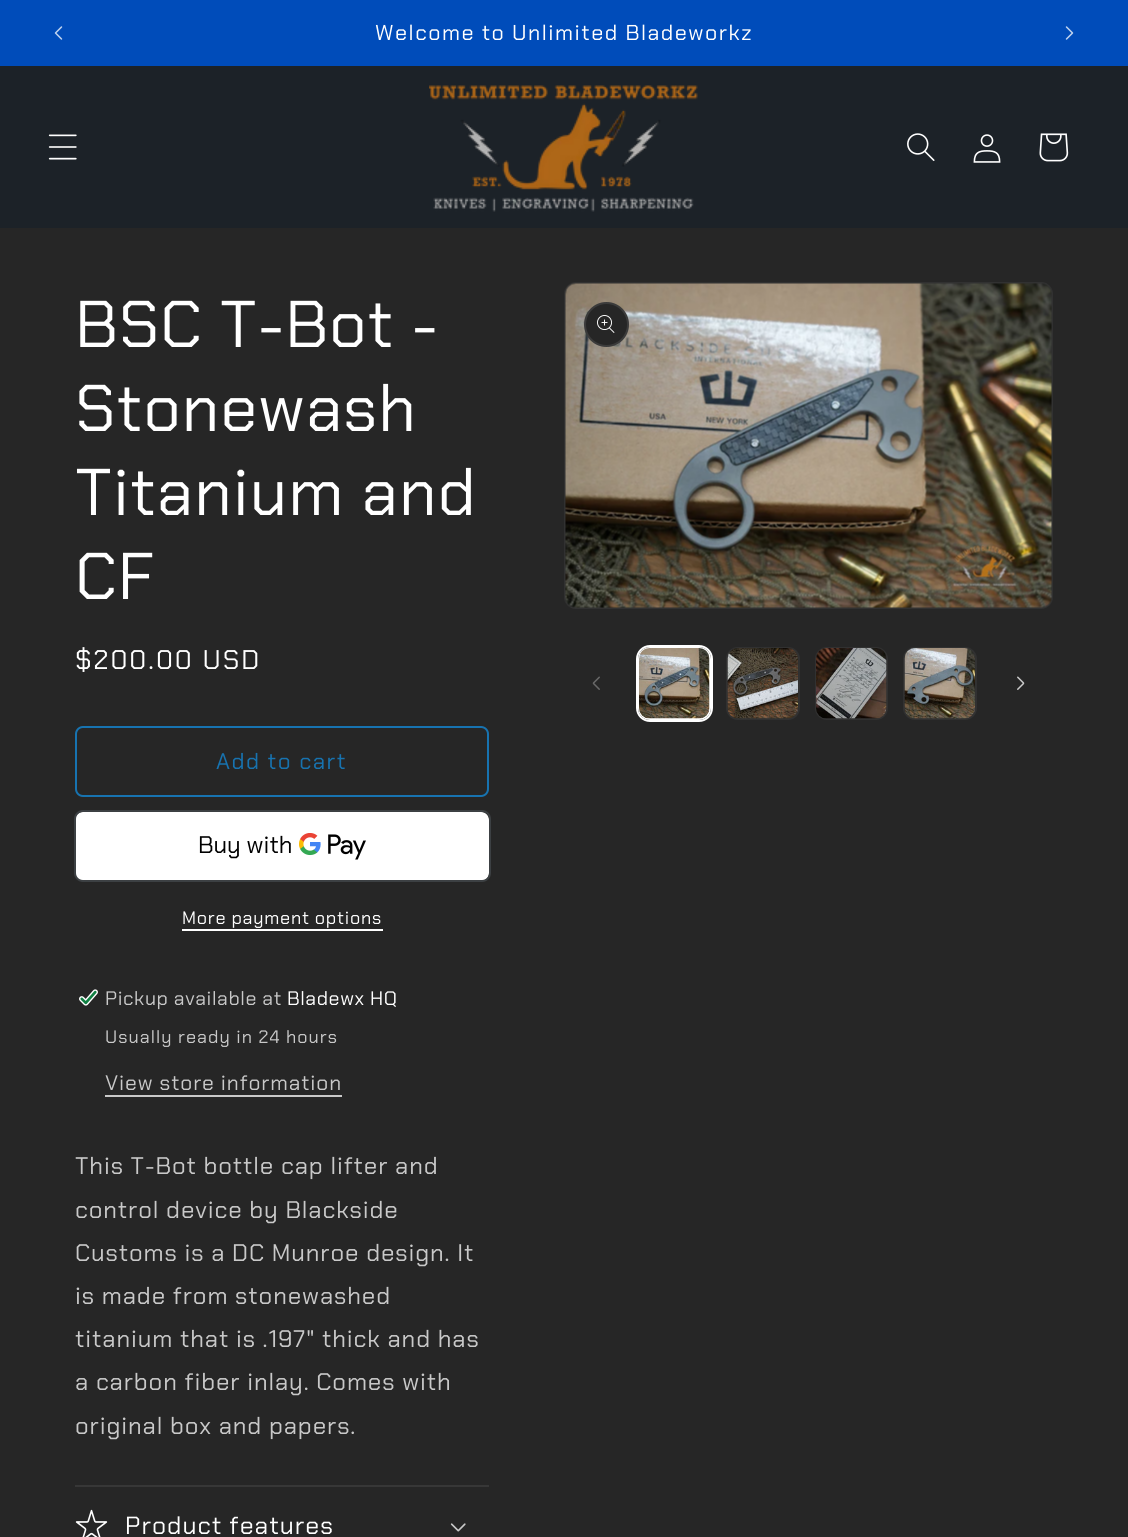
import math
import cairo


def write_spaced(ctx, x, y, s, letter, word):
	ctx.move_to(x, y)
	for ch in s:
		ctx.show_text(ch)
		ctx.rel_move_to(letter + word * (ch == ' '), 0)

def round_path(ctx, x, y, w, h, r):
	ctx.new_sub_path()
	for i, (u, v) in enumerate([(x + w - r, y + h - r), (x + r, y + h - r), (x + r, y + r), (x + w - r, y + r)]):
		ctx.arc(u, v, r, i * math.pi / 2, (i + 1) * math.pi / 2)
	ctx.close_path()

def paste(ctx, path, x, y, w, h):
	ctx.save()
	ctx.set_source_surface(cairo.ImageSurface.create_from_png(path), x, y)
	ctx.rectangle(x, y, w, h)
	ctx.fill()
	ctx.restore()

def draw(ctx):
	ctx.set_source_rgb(0.149, 0.149, 0.149)
	ctx.paint()
	ctx.set_source_rgb(0, 0.298, 0.729)
	ctx.rectangle(0, 0, 1128, 66)
	ctx.fill()
	paste(ctx, 'media/1.png', 54, 26, 9, 14)
	ctx.select_font_face('Chakra Petch')
	ctx.set_font_size(21.5)
	ctx.set_source_rgb(1, 1, 1)
	write_spaced(ctx, 375, 40, 'Welcome to Unlimited Bladeworkz', 1.5, 0)
	paste(ctx, 'media/2.png', 1065, 26, 9, 14)
	ctx.set_source_rgb(0.11, 0.133, 0.157)
	ctx.rectangle(0, 66, 1128, 162)
	ctx.fill()
	paste(ctx, 'media/3.png', 48, 134, 29, 26)
	paste(ctx, 'media/4.png', 429, 85, 269, 127)
	paste(ctx, 'media/5.png', 907, 133, 28, 28)
	paste(ctx, 'media/6.png', 973, 134, 28, 29)
	paste(ctx, 'media/7.png', 1039, 133, 30, 29)
	ctx.set_font_size(66)
	ctx.set_source_rgb(1, 1, 1)
	for x, y, s in [
		(75, 347, 'BSC T-Bot -'),
		(75, 431, 'Stonewash'),
		(75, 515, 'Titanium and'),
		(75, 599, 'CF'),
	]:
		write_spaced(ctx, x, y, s, 1, 0)
	ctx.set_font_size(27)
	write_spaced(ctx, 75, 669, '$200.00 USD', 2, 0)
	round_path(ctx, 76, 727, 412, 69, 7)
	ctx.set_source_rgb(0.09, 0.451, 0.69)
	ctx.stroke()
	ctx.set_font_size(22.5)
	write_spaced(ctx, 216, 769, 'Add to cart', 1.5, 0)
	ctx.set_source_rgb(1, 1, 1)
	round_path(ctx, 75, 812, 414, 69, 8)
	ctx.fill()
	round_path(ctx, 75, 811, 415, 70, 8)
	ctx.set_source_rgb(0.235, 0.251, 0.263)
	ctx.stroke()
	ctx.set_font_size(24)
	ctx.set_source_rgb(0, 0, 0)
	ctx.move_to(198, 853)
	ctx.show_text('Buy with')
	paste(ctx, 'media/8.png', 299, 833, 67, 27)
	ctx.set_font_size(18)
	ctx.set_source_rgb(1, 1, 1)
	write_spaced(ctx, 182, 924, 'More payment options', 0.75, 0)
	ctx.rectangle(182, 929, 201, 2)
	ctx.fill()
	paste(ctx, 'media/9.png', 79, 989, 19, 17)
	ctx.set_font_size(19.5)
	ctx.set_source_rgb(0.788, 0.788, 0.788)
	write_spaced(ctx, 105, 1005, 'Pickup available at', 0.6, 0)
	ctx.set_source_rgb(1, 1, 1)
	write_spaced(ctx, 287, 1005, 'Bladewx HQ', 0.6, 0)
	ctx.set_font_size(18)
	ctx.set_source_rgb(0.788, 0.788, 0.788)
	write_spaced(ctx, 105, 1043, 'Usually ready in 24 hours', 1.05, 0)
	ctx.set_font_size(21)
	write_spaced(ctx, 105, 1090, 'View store information', 0.9, 0)
	ctx.rectangle(105, 1095, 237, 2)
	ctx.fill()
	ctx.set_font_size(24)
	for x, y, s in [
		(75, 1174, 'This T-Bot bottle cap lifter and'),
		(75, 1218, 'control device by Blackside'),
		(75, 1261, 'Customs is a DC Munroe design. It'),
		(75, 1304, 'is made from stonewashed'),
		(75, 1347, 'titanium that is .197" thick and has'),
		(75, 1390, 'a carbon fiber inlay. Comes with'),
		(75, 1434, 'original box and papers.'),
	]:
		write_spaced(ctx, x, y, s, 0.9, 0)
	ctx.set_source_rgb(0.216, 0.216, 0.216)
	ctx.rectangle(75, 1485, 414, 2)
	ctx.fill()
	paste(ctx, 'media/10.png', 75, 1509, 33, 28)
	ctx.set_font_size(24.75)
	ctx.set_source_rgb(1, 1, 1)
	write_spaced(ctx, 125, 1534, 'Product features', 1, 0)
	paste(ctx, 'media/11.png', 450, 1523, 16, 9)
	round_path(ctx, 565, 283, 487, 325, 11)
	ctx.set_source_rgb(0.192, 0.192, 0.192)
	ctx.stroke()
	paste(ctx, 'media/12.png', 565, 283, 487, 325)
	ctx.set_source_rgb(0.149, 0.149, 0.149)
	ctx.arc(606.5, 324.5, 22.5, 0, 2 * math.pi)
	ctx.fill()
	ctx.arc(606.5, 324.5, 21.5, 0, 2 * math.pi)
	ctx.set_source_rgba(1, 1, 1, 0.1)
	ctx.stroke()
	paste(ctx, 'media/13.png', 597, 315, 18, 18)
	paste(ctx, 'media/14.png', 592, 676, 8, 14)
	round_path(ctx, 637, 646, 75, 75, 13)
	ctx.set_source_rgb(1, 1, 1)
	ctx.stroke()
	round_path(ctx, 639, 648, 71, 71, 11)
	ctx.stroke()
	paste(ctx, 'media/15.png', 639, 648, 71, 71)
	round_path(ctx, 727, 648, 72, 71, 11)
	ctx.set_source_rgb(0.192, 0.192, 0.192)
	ctx.stroke()
	paste(ctx, 'media/16.png', 727, 648, 71, 71)
	round_path(ctx, 816, 648, 71, 71, 11)
	ctx.stroke()
	paste(ctx, 'media/17.png', 816, 648, 71, 71)
	round_path(ctx, 904, 648, 72, 71, 11)
	ctx.stroke()
	paste(ctx, 'media/18.png', 904, 648, 71, 71)
	paste(ctx, 'media/19.png', 1017, 676, 8, 14)


surface = cairo.ImageSurface(cairo.FORMAT_RGB24, 1128, 1537)
ctx = cairo.Context(surface)
options = cairo.FontOptions()
options.set_hint_metrics(cairo.HINT_METRICS_OFF)
options.set_hint_style(cairo.HINT_STYLE_NONE)
ctx.set_font_options(options)
ctx.set_miter_limit(4)
draw(ctx)
surface.write_to_png('image.png')
